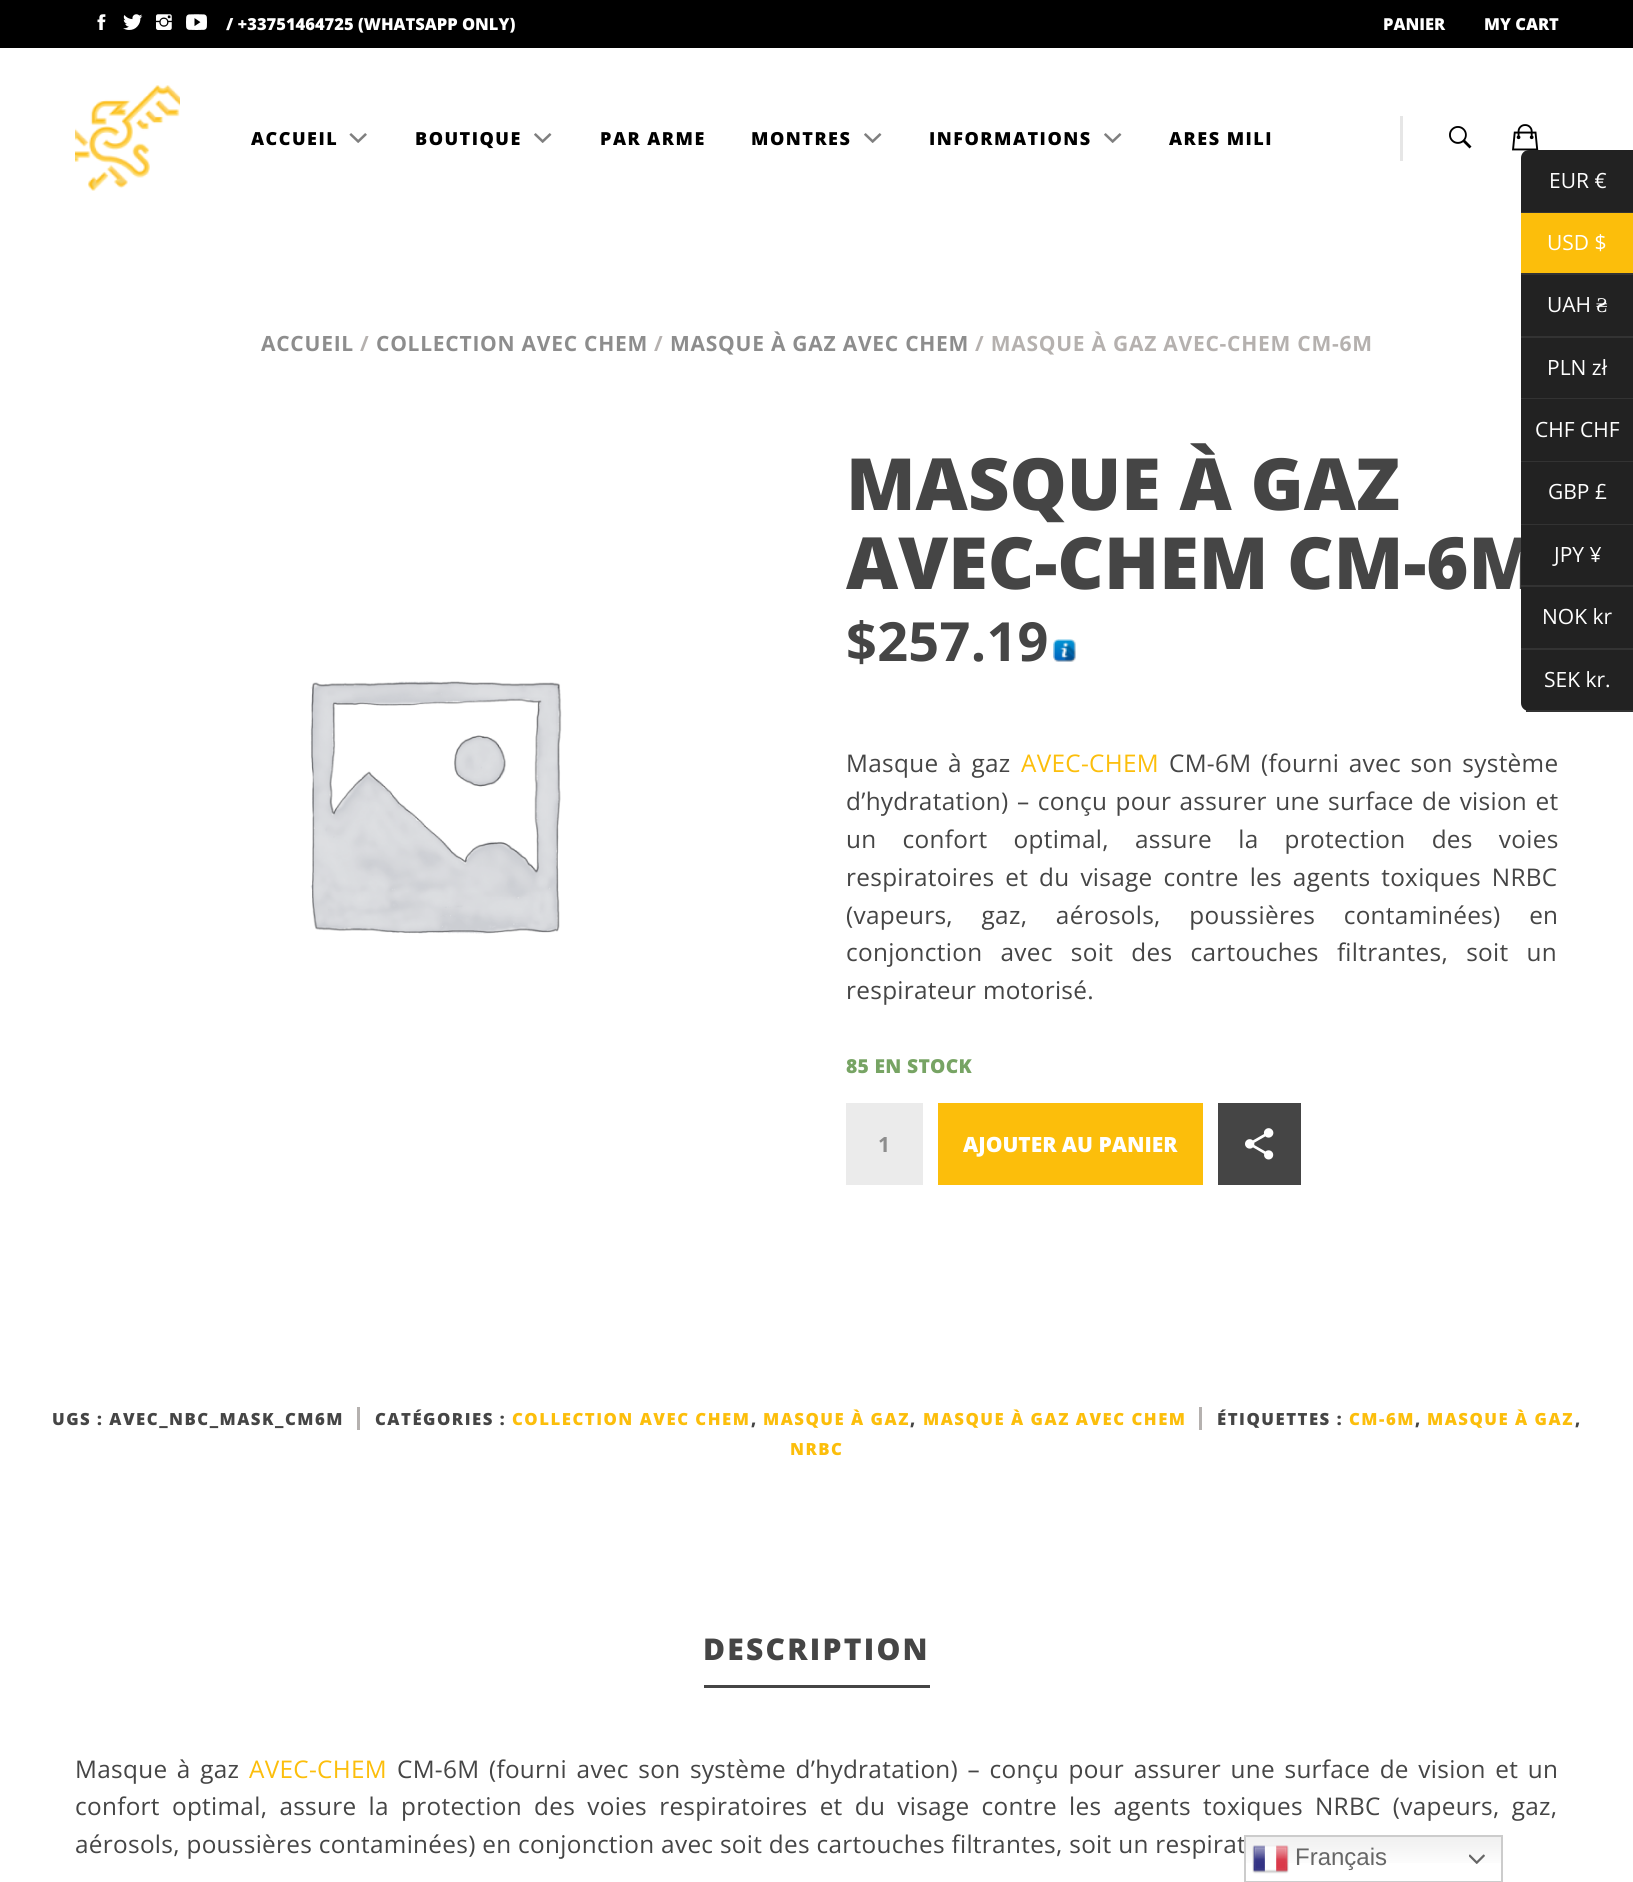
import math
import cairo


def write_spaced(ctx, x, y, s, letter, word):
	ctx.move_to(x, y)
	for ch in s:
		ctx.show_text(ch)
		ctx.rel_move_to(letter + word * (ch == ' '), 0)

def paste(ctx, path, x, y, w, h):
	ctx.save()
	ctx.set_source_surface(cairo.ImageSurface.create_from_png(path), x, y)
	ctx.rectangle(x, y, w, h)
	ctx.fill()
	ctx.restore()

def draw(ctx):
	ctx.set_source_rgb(1, 1, 1)
	ctx.paint()
	ctx.set_source_rgb(0, 0, 0)
	ctx.rectangle(0, 0, 1633, 48)
	ctx.fill()
	paste(ctx, 'media/1.png', 97, 14, 9, 16)
	paste(ctx, 'media/2.png', 123, 14, 20, 16)
	paste(ctx, 'media/3.png', 156, 14, 16, 16)
	paste(ctx, 'media/4.png', 186, 14, 21, 16)
	ctx.select_font_face('Open Sans ExtraBold')
	ctx.set_font_size(16.5)
	ctx.set_source_rgb(1, 1, 1)
	for x, y, s in [
		(226, 30, '/ +33751464725 (WHATSAPP ONLY)'),
		(1383, 30, 'PANIER'),
		(1484, 30, 'MY CART'),
	]:
		ctx.move_to(x, y)
		ctx.show_text(s)
	paste(ctx, 'media/5.png', 75, 85, 105, 106)
	ctx.set_font_size(18)
	ctx.set_source_rgb(0, 0, 0)
	write_spaced(ctx, 251, 145, 'ACCUEIL', 1.5, 0)
	paste(ctx, 'media/6.png', 349, 133, 18, 10)
	write_spaced(ctx, 415, 145, 'BOUTIQUE', 1.5, 0)
	paste(ctx, 'media/7.png', 534, 133, 18, 10)
	write_spaced(ctx, 600, 145, 'PAR ARME', 1.5, 0)
	write_spaced(ctx, 751, 145, 'MONTRES', 1.5, 0)
	paste(ctx, 'media/7.png', 864, 133, 18, 10)
	write_spaced(ctx, 929, 145, 'INFORMATIONS', 1.5, 0)
	paste(ctx, 'media/7.png', 1104, 133, 18, 10)
	write_spaced(ctx, 1169, 145, 'ARES MILI', 1.5, 0)
	ctx.set_source_rgb(0.902, 0.902, 0.902)
	ctx.rectangle(1400, 116, 3, 45)
	ctx.fill()
	paste(ctx, 'media/8.png', 1449, 126, 23, 23)
	paste(ctx, 'media/9.png', 1512, 124, 27, 27)
	ctx.set_source_rgb(0.133, 0.133, 0.133)
	ctx.new_path()
	ctx.move_to(1529, 150)
	ctx.line_to(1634, 150)
	ctx.line_to(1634, 213)
	ctx.line_to(1521, 213)
	ctx.line_to(1521, 158)
	ctx.curve_to(1521, 153.5, 1524.5, 150, 1529, 150)
	ctx.close_path()
	ctx.fill()
	ctx.set_source_rgb(0.2, 0.2, 0.2)
	ctx.rectangle(1521, 212, 112, 1)
	ctx.fill()
	ctx.select_font_face('Open Sans')
	ctx.set_font_size(21)
	ctx.set_source_rgb(1, 1, 1)
	ctx.move_to(1549, 188)
	ctx.show_text('EUR €')
	ctx.set_source_rgb(0.988, 0.745, 0.043)
	ctx.rectangle(1521, 213, 112, 60)
	ctx.fill()
	ctx.set_source_rgb(0.2, 0.2, 0.2)
	ctx.rectangle(1521, 273, 112, 2)
	ctx.fill()
	ctx.set_source_rgb(1, 1, 1)
	ctx.move_to(1547, 250)
	ctx.show_text('USD $')
	ctx.set_source_rgb(0.133, 0.133, 0.133)
	ctx.rectangle(1521, 275, 112, 61)
	ctx.fill()
	ctx.set_source_rgb(0.2, 0.2, 0.2)
	ctx.rectangle(1521, 336, 112, 2)
	ctx.fill()
	ctx.set_source_rgb(1, 1, 1)
	ctx.move_to(1547, 312)
	ctx.show_text('UAH')
	ctx.select_font_face('Liberation Serif')
	ctx.move_to(1596, 312)
	ctx.show_text('₴')
	ctx.set_source_rgb(0.133, 0.133, 0.133)
	ctx.rectangle(1521, 338, 112, 60)
	ctx.fill()
	ctx.set_source_rgb(0.2, 0.2, 0.2)
	ctx.rectangle(1521, 398, 112, 1)
	ctx.fill()
	ctx.select_font_face('Open Sans')
	ctx.set_source_rgb(1, 1, 1)
	ctx.move_to(1547, 375)
	ctx.show_text('PLN zł')
	ctx.set_source_rgb(0.133, 0.133, 0.133)
	ctx.rectangle(1521, 399, 112, 62)
	ctx.fill()
	ctx.set_source_rgb(0.2, 0.2, 0.2)
	ctx.rectangle(1521, 461, 112, 1)
	ctx.fill()
	ctx.set_source_rgb(1, 1, 1)
	ctx.move_to(1535, 437)
	ctx.show_text('CHF CHF')
	ctx.set_source_rgb(0.133, 0.133, 0.133)
	ctx.rectangle(1521, 462, 112, 62)
	ctx.fill()
	ctx.set_source_rgb(0.2, 0.2, 0.2)
	ctx.rectangle(1521, 524, 112, 1)
	ctx.fill()
	ctx.set_source_rgb(1, 1, 1)
	ctx.move_to(1548, 499)
	ctx.show_text('GBP £')
	ctx.select_font_face('Open Sans ExtraBold')
	ctx.set_font_size(72)
	ctx.set_source_rgb(0.271, 0.271, 0.271)
	ctx.move_to(846, 589)
	ctx.show_text('AVEC-CHEM CM-6M')
	ctx.set_source_rgb(0.133, 0.133, 0.133)
	ctx.rectangle(1521, 525, 112, 60)
	ctx.fill()
	ctx.set_source_rgb(0.2, 0.2, 0.2)
	ctx.rectangle(1521, 585, 112, 2)
	ctx.fill()
	ctx.select_font_face('Open Sans')
	ctx.set_font_size(21)
	ctx.set_source_rgb(1, 1, 1)
	ctx.move_to(1554, 562)
	ctx.show_text('JPY ¥')
	ctx.set_source_rgb(0.133, 0.133, 0.133)
	ctx.rectangle(1521, 587, 112, 61)
	ctx.fill()
	ctx.set_source_rgb(0.2, 0.2, 0.2)
	ctx.rectangle(1521, 648, 112, 2)
	ctx.fill()
	ctx.set_source_rgb(1, 1, 1)
	ctx.move_to(1542, 624)
	ctx.show_text('NOK kr')
	ctx.set_source_rgb(0.133, 0.133, 0.133)
	ctx.new_path()
	ctx.move_to(1521, 650)
	ctx.line_to(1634, 650)
	ctx.line_to(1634, 711)
	ctx.line_to(1529, 711)
	ctx.curve_to(1524.5, 711, 1521, 707.5, 1521, 703)
	ctx.close_path()
	ctx.fill()
	ctx.set_source_rgb(0.2, 0.2, 0.2)
	ctx.rectangle(1526, 710, 107, 2)
	ctx.fill()
	ctx.set_source_rgb(1, 1, 1)
	ctx.move_to(1544, 687)
	ctx.show_text('SEK kr.')
	ctx.select_font_face('Open Sans', cairo.FONT_SLANT_NORMAL, cairo.FONT_WEIGHT_BOLD)
	ctx.set_source_rgb(0.553, 0.553, 0.553)
	write_spaced(ctx, 261, 351, 'ACCUEIL', 0.75, 0)
	ctx.set_source_rgb(0.71, 0.694, 0.686)
	write_spaced(ctx, 360, 351, '/', 0.75, 0)
	ctx.set_source_rgb(0.553, 0.553, 0.553)
	write_spaced(ctx, 376, 351, 'COLLECTION AVEC CHEM', 0.75, 0)
	ctx.set_source_rgb(0.71, 0.694, 0.686)
	write_spaced(ctx, 654, 351, '/', 0.75, 0)
	ctx.set_source_rgb(0.553, 0.553, 0.553)
	write_spaced(ctx, 670, 351, 'MASQUE À GAZ AVEC CHEM', 0.75, 0)
	ctx.set_source_rgb(0.71, 0.694, 0.686)
	write_spaced(ctx, 975, 351, '/ MASQUE À GAZ AVEC-CHEM CM-6M', 0.75, 0)
	paste(ctx, 'media/10.png', 310, 681, 252, 253)
	ctx.select_font_face('Open Sans ExtraBold')
	ctx.set_font_size(72)
	ctx.set_source_rgb(0.271, 0.271, 0.271)
	ctx.move_to(846, 510)
	ctx.show_text('MASQUE À GAZ')
	ctx.select_font_face('Open Sans', cairo.FONT_SLANT_NORMAL, cairo.FONT_WEIGHT_BOLD)
	ctx.set_font_size(54)
	write_spaced(ctx, 846, 661, '$257.19', 0.3, 0)
	paste(ctx, 'media/11.png', 1053, 639, 23, 23)
	ctx.select_font_face('Open Sans')
	ctx.set_font_size(24.35)
	write_spaced(ctx, 846, 772, 'Masque à gaz', 0.3, 3)
	ctx.set_source_rgb(0.988, 0.745, 0.043)
	write_spaced(ctx, 1021, 772, 'AVEC-CHEM', 0.3, 0)
	ctx.set_source_rgb(0.271, 0.271, 0.271)
	write_spaced(ctx, 1169, 772, 'CM-6M (fourni avec son système', 0.3, 3)
	write_spaced(ctx, 846, 810, 'd’hydratation) – conçu pour assurer une surface de vision et', 0.3, 1.75)
	write_spaced(ctx, 846, 848, 'un confort optimal, assure la protection des voies', 0.3, 19.5)
	write_spaced(ctx, 846, 886, 'respiratoires et du visage contre les agents toxiques NRBC', 0.3, 4.25)
	write_spaced(ctx, 846, 924, '(vapeurs, gaz, aérosols, poussières contaminées) en', 0.3, 22)
	write_spaced(ctx, 846, 961, 'conjonction avec soit des cartouches filtrantes, soit un', 0.3, 11.5)
	write_spaced(ctx, 846, 999, 'respirateur motorisé.', 0.3, 0)
	ctx.select_font_face('Open Sans ExtraBold')
	ctx.set_font_size(19.25)
	ctx.set_source_rgb(0.467, 0.643, 0.392)
	write_spaced(ctx, 846, 1073, '85 EN STOCK', 0.3, 0)
	ctx.set_source_rgb(0.918, 0.918, 0.918)
	ctx.rectangle(846, 1103, 77, 82)
	ctx.fill()
	ctx.select_font_face('Open Sans', cairo.FONT_SLANT_NORMAL, cairo.FONT_WEIGHT_BOLD)
	ctx.set_font_size(21)
	ctx.set_source_rgb(0.553, 0.553, 0.553)
	ctx.move_to(878, 1152)
	ctx.show_text('1')
	ctx.set_source_rgb(0.988, 0.745, 0.043)
	ctx.rectangle(938, 1103, 265, 82)
	ctx.fill()
	ctx.select_font_face('Open Sans ExtraBold')
	ctx.set_source_rgb(1, 1, 1)
	ctx.move_to(963, 1152)
	ctx.show_text('AJOUTER AU PANIER')
	ctx.set_source_rgb(0.271, 0.271, 0.271)
	ctx.rectangle(1218, 1103, 83, 82)
	ctx.fill()
	paste(ctx, 'media/12.png', 1245, 1128, 29, 32)
	ctx.set_font_size(16.75)
	write_spaced(ctx, 52, 1425, 'UGS : AVEC_NBC_MASK_CM6M', 1.5, 0)
	ctx.set_source_rgb(0.71, 0.694, 0.686)
	ctx.rectangle(357, 1407, 3, 23)
	ctx.fill()
	ctx.set_source_rgb(0.271, 0.271, 0.271)
	write_spaced(ctx, 375, 1425, 'CATÉGORIES :', 1.5, 0)
	ctx.set_source_rgb(0.988, 0.745, 0.043)
	write_spaced(ctx, 512, 1425, 'COLLECTION AVEC CHEM', 1.5, 0)
	ctx.set_source_rgb(0.271, 0.271, 0.271)
	write_spaced(ctx, 751, 1425, ',', 1.5, 0)
	ctx.set_source_rgb(0.988, 0.745, 0.043)
	write_spaced(ctx, 763, 1425, 'MASQUE À GAZ', 1.5, 0)
	ctx.set_source_rgb(0.271, 0.271, 0.271)
	write_spaced(ctx, 910, 1425, ',', 1.5, 0)
	ctx.set_source_rgb(0.988, 0.745, 0.043)
	write_spaced(ctx, 923, 1425, 'MASQUE À GAZ AVEC CHEM', 1.5, 0)
	ctx.set_source_rgb(0.71, 0.694, 0.686)
	ctx.rectangle(1199, 1407, 3, 23)
	ctx.fill()
	ctx.set_source_rgb(0.271, 0.271, 0.271)
	write_spaced(ctx, 1217, 1425, 'ÉTIQUETTES :', 1.5, 0)
	ctx.set_source_rgb(0.988, 0.745, 0.043)
	write_spaced(ctx, 1349, 1425, 'CM-6M', 1.5, 0)
	ctx.set_source_rgb(0.271, 0.271, 0.271)
	write_spaced(ctx, 1415, 1425, ',', 1.5, 0)
	ctx.set_source_rgb(0.988, 0.745, 0.043)
	write_spaced(ctx, 1427, 1425, 'MASQUE À GAZ', 1.5, 0)
	ctx.set_source_rgb(0.271, 0.271, 0.271)
	write_spaced(ctx, 1575, 1425, ',', 1.5, 0)
	ctx.set_source_rgb(0.988, 0.745, 0.043)
	write_spaced(ctx, 790, 1455, 'NRBC', 1.5, 0)
	ctx.set_source_rgb(0.271, 0.271, 0.271)
	ctx.rectangle(704, 1685, 226, 3)
	ctx.fill()
	ctx.set_font_size(30)
	write_spaced(ctx, 703, 1660, 'DESCRIPTION', 2.25, 0)
	ctx.select_font_face('Open Sans')
	ctx.set_font_size(24.35)
	write_spaced(ctx, 75, 1778, 'Masque à gaz', 0.3, 2.9)
	ctx.set_source_rgb(0.988, 0.745, 0.043)
	write_spaced(ctx, 249, 1778, 'AVEC-CHEM', 0.3, 0)
	ctx.set_source_rgb(0.271, 0.271, 0.271)
	write_spaced(ctx, 397, 1778, 'CM-6M (fourni avec son système d’hydratation) – conçu pour assurer une surface de vision et un', 0.3, 2.9)
	write_spaced(ctx, 75, 1815, 'confort optimal, assure la protection des voies respiratoires et du visage contre les agents toxiques NRBC (vapeurs, gaz,', 0.3, 5.5)
	write_spaced(ctx, 75, 1853, 'aérosols, poussières contaminées) en conjonction avec soit des cartouches filtrantes, soit un respirat', 0.3, 0)
	gradient = cairo.LinearGradient(1373, 1835, 1373, 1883)
	gradient.add_color_stop_rgba(0, 0.937, 0.937, 0.937, 1)
	gradient.add_color_stop_rgba(0.7, 1, 1, 1, 1)
	ctx.set_source(gradient)
	ctx.rectangle(1246, 1837, 255, 26)
	ctx.fill()
	ctx.rectangle(1245, 1836, 257, 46)
	ctx.set_source_rgb(0.8, 0.8, 0.8)
	ctx.stroke()
	paste(ctx, 'media/13.png', 1252, 1845, 37, 29)
	ctx.select_font_face('Liberation Sans')
	ctx.set_font_size(24)
	ctx.set_source_rgb(0.4, 0.4, 0.4)
	ctx.move_to(1295, 1865)
	ctx.show_text('Français')
	paste(ctx, 'media/14.png', 1469, 1854, 16, 10)


surface = cairo.ImageSurface(cairo.FORMAT_RGB24, 1633, 1882)
ctx = cairo.Context(surface)
options = cairo.FontOptions()
options.set_hint_metrics(cairo.HINT_METRICS_OFF)
options.set_hint_style(cairo.HINT_STYLE_NONE)
ctx.set_font_options(options)
ctx.set_miter_limit(4)
draw(ctx)
surface.write_to_png('image.png')
